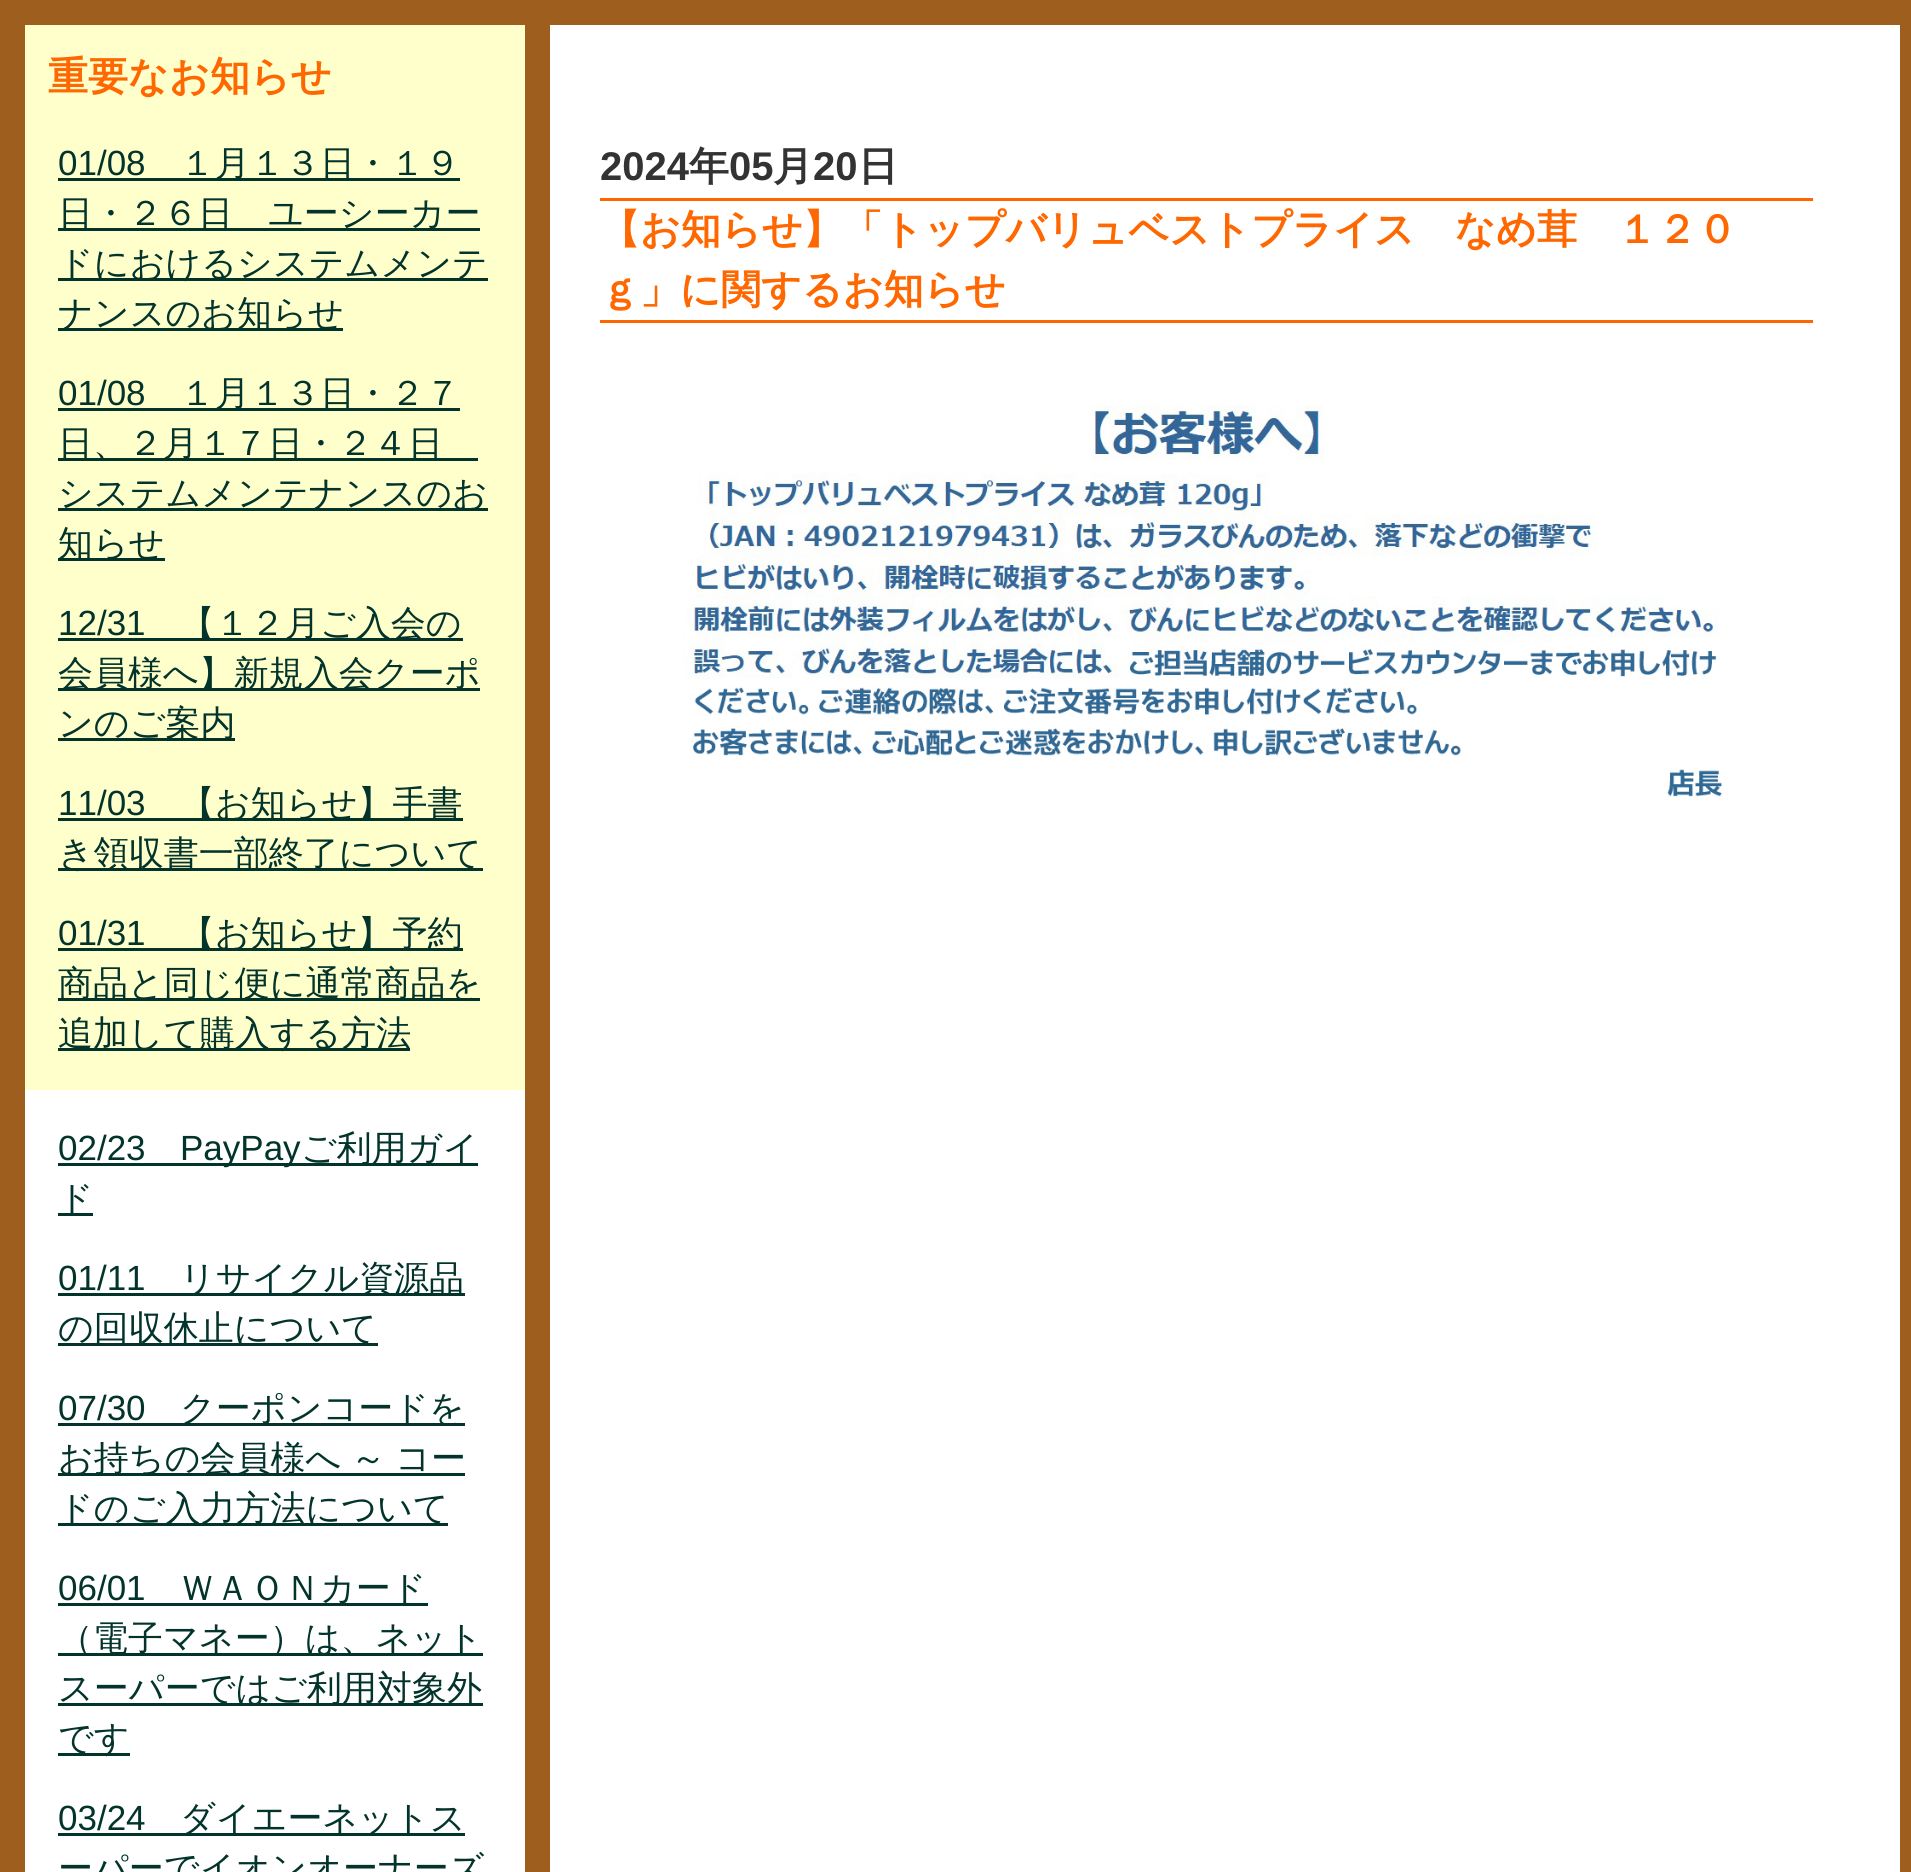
import math
import cairo


def write_spaced(ctx, x, y, s, letter, word):
	ctx.move_to(x, y)
	for ch in s:
		ctx.show_text(ch)
		ctx.rel_move_to(letter + word * (ch == ' '), 0)

def paste(ctx, path, x, y, w, h):
	ctx.save()
	ctx.set_source_surface(cairo.ImageSurface.create_from_png(path), x, y)
	ctx.rectangle(x, y, w, h)
	ctx.fill()
	ctx.restore()

def draw(ctx):
	ctx.set_source_rgb(1, 1, 1)
	ctx.paint()
	ctx.rectangle(12.5, 12.5, 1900, 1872)
	ctx.set_source_rgb(0.62, 0.369, 0.118)
	ctx.set_line_width(25)
	ctx.stroke()
	ctx.rectangle(525, 25, 25, 1847)
	ctx.fill()
	ctx.set_source_rgb(1, 1, 0.8)
	ctx.rectangle(25, 25, 500, 1065)
	ctx.fill()
	ctx.select_font_face('WenQuanYi Zen Hei', cairo.FONT_SLANT_NORMAL, cairo.FONT_WEIGHT_BOLD)
	ctx.set_font_size(40)
	ctx.set_source_rgb(1, 0.404, 0)
	ctx.move_to(48, 90)
	ctx.show_text('重要なお知らせ')
	ctx.select_font_face('Liberation Sans')
	ctx.set_font_size(35)
	ctx.set_source_rgb(0.012, 0.204, 0.173)
	ctx.move_to(58, 175)
	ctx.show_text('01/08')
	ctx.rectangle(58, 178, 402, 3)
	ctx.fill()
	ctx.select_font_face('WenQuanYi Zen Hei Medium')
	ctx.move_to(180, 175)
	ctx.show_text('１月１３日・１９')
	ctx.rectangle(58, 228, 422, 3)
	ctx.fill()
	ctx.move_to(58, 225)
	ctx.show_text('日・２６日　ユーシーカー')
	ctx.rectangle(58, 278, 430, 3)
	ctx.fill()
	ctx.move_to(58, 275)
	ctx.show_text('ドにおけるシステムメンテ')
	ctx.rectangle(58, 328, 285, 3)
	ctx.fill()
	ctx.move_to(58, 325)
	ctx.show_text('ナンスのお知らせ')
	ctx.select_font_face('Liberation Sans')
	ctx.move_to(58, 405)
	ctx.show_text('01/08')
	ctx.rectangle(58, 408, 402, 3)
	ctx.fill()
	ctx.select_font_face('WenQuanYi Zen Hei Medium')
	ctx.move_to(180, 405)
	ctx.show_text('１月１３日・２７')
	ctx.rectangle(58, 458, 420, 3)
	ctx.fill()
	ctx.move_to(58, 455)
	ctx.show_text('日、２月１７日・２４日')
	ctx.rectangle(58, 508, 430, 3)
	ctx.fill()
	ctx.move_to(58, 505)
	ctx.show_text('システムメンテナンスのお')
	ctx.rectangle(58, 558, 107, 3)
	ctx.fill()
	ctx.move_to(58, 555)
	ctx.show_text('知らせ')
	ctx.select_font_face('Liberation Sans')
	ctx.move_to(58, 635)
	ctx.show_text('12/31')
	ctx.rectangle(58, 638, 405, 3)
	ctx.fill()
	ctx.select_font_face('WenQuanYi Zen Hei Medium')
	ctx.move_to(180, 635)
	ctx.show_text('【１２月ご入会の')
	ctx.rectangle(58, 688, 422, 3)
	ctx.fill()
	ctx.move_to(58, 685)
	ctx.show_text('会員様へ】新規入会クーポ')
	ctx.rectangle(58, 738, 177, 3)
	ctx.fill()
	ctx.move_to(58, 735)
	ctx.show_text('ンのご案内')
	ctx.select_font_face('Liberation Sans')
	ctx.move_to(58, 815)
	ctx.show_text('11/03')
	ctx.rectangle(58, 818, 405, 3)
	ctx.fill()
	ctx.select_font_face('WenQuanYi Zen Hei Medium')
	ctx.move_to(180, 815)
	ctx.show_text('【お知らせ】手書')
	ctx.rectangle(58, 868, 425, 3)
	ctx.fill()
	ctx.move_to(58, 865)
	ctx.show_text('き領収書一部終了について')
	ctx.select_font_face('Liberation Sans')
	ctx.move_to(58, 945)
	ctx.show_text('01/31')
	ctx.rectangle(58, 948, 405, 3)
	ctx.fill()
	ctx.select_font_face('WenQuanYi Zen Hei Medium')
	ctx.move_to(180, 945)
	ctx.show_text('【お知らせ】予約')
	ctx.rectangle(58, 998, 422, 3)
	ctx.fill()
	ctx.move_to(58, 995)
	ctx.show_text('商品と同じ便に通常商品を')
	ctx.rectangle(58, 1048, 352, 3)
	ctx.fill()
	ctx.move_to(58, 1045)
	ctx.show_text('追加して購入する方法')
	ctx.select_font_face('Liberation Sans')
	ctx.move_to(58, 1160)
	ctx.show_text('02/23')
	ctx.rectangle(58, 1163, 420, 3)
	ctx.fill()
	ctx.move_to(180, 1160)
	ctx.show_text('PayPay')
	ctx.select_font_face('WenQuanYi Zen Hei Medium')
	ctx.move_to(301, 1160)
	ctx.show_text('ご利用ガイ')
	ctx.rectangle(58, 1213, 35, 3)
	ctx.fill()
	ctx.move_to(58, 1210)
	ctx.show_text('ド')
	ctx.select_font_face('Liberation Sans')
	ctx.move_to(58, 1290)
	ctx.show_text('01/11')
	ctx.rectangle(58, 1293, 407, 3)
	ctx.fill()
	ctx.select_font_face('WenQuanYi Zen Hei Medium')
	ctx.move_to(180, 1290)
	ctx.show_text('リサイクル資源品')
	ctx.rectangle(58, 1343, 320, 3)
	ctx.fill()
	ctx.move_to(58, 1340)
	ctx.show_text('の回収休止について')
	ctx.select_font_face('Liberation Sans')
	ctx.move_to(58, 1420)
	ctx.show_text('07/30')
	ctx.rectangle(58, 1423, 407, 3)
	ctx.fill()
	ctx.select_font_face('WenQuanYi Zen Hei Medium')
	ctx.move_to(180, 1420)
	ctx.show_text('クーポンコードを')
	ctx.rectangle(58, 1473, 407, 3)
	ctx.fill()
	write_spaced(ctx, 58, 1470, 'お持ちの会員様へ ～ コー', 0, -1)
	ctx.rectangle(58, 1523, 390, 3)
	ctx.fill()
	ctx.move_to(58, 1520)
	ctx.show_text('ドのご入力方法について')
	ctx.select_font_face('Liberation Sans')
	ctx.move_to(58, 1600)
	ctx.show_text('06/01')
	ctx.rectangle(58, 1603, 370, 3)
	ctx.fill()
	ctx.select_font_face('WenQuanYi Zen Hei Medium')
	ctx.move_to(180, 1600)
	ctx.show_text('ＷＡＯＮカード')
	ctx.rectangle(58, 1653, 425, 3)
	ctx.fill()
	ctx.move_to(58, 1650)
	ctx.show_text('（電子マネー）は、ネット')
	ctx.rectangle(58, 1703, 425, 3)
	ctx.fill()
	ctx.move_to(58, 1700)
	ctx.show_text('スーパーではご利用対象外')
	ctx.rectangle(58, 1753, 72, 3)
	ctx.fill()
	ctx.move_to(58, 1750)
	ctx.show_text('です')
	ctx.select_font_face('Liberation Sans')
	ctx.move_to(58, 1830)
	ctx.show_text('03/24')
	ctx.rectangle(58, 1833, 407, 3)
	ctx.fill()
	ctx.select_font_face('WenQuanYi Zen Hei Medium')
	ctx.move_to(180, 1830)
	ctx.show_text('ダイエーネットス')
	ctx.move_to(58, 1880)
	ctx.show_text('ーパーでイオンオーナーズ')
	ctx.select_font_face('Liberation Sans', cairo.FONT_SLANT_NORMAL, cairo.FONT_WEIGHT_BOLD)
	ctx.set_font_size(40)
	ctx.set_source_rgb(0.2, 0.2, 0.2)
	ctx.move_to(600, 180)
	ctx.show_text('2024')
	ctx.select_font_face('WenQuanYi Zen Hei', cairo.FONT_SLANT_NORMAL, cairo.FONT_WEIGHT_BOLD)
	ctx.move_to(689, 180)
	ctx.show_text('年')
	ctx.select_font_face('Liberation Sans', cairo.FONT_SLANT_NORMAL, cairo.FONT_WEIGHT_BOLD)
	ctx.move_to(729, 180)
	ctx.show_text('05')
	ctx.select_font_face('WenQuanYi Zen Hei', cairo.FONT_SLANT_NORMAL, cairo.FONT_WEIGHT_BOLD)
	ctx.move_to(773, 180)
	ctx.show_text('月')
	ctx.select_font_face('Liberation Sans', cairo.FONT_SLANT_NORMAL, cairo.FONT_WEIGHT_BOLD)
	ctx.move_to(813, 180)
	ctx.show_text('20')
	ctx.select_font_face('WenQuanYi Zen Hei', cairo.FONT_SLANT_NORMAL, cairo.FONT_WEIGHT_BOLD)
	ctx.move_to(858, 180)
	ctx.show_text('日')
	ctx.set_source_rgb(1, 0.4, 0)
	ctx.rectangle(600, 198, 1213, 3)
	ctx.fill()
	ctx.rectangle(600, 320, 1213, 3)
	ctx.fill()
	ctx.set_source_rgb(1, 0.404, 0)
	ctx.move_to(600, 243)
	ctx.show_text('【お知らせ】「トップバリュベストプライス　なめ茸　１２０')
	ctx.move_to(600, 303)
	ctx.show_text('ｇ」に関するお知らせ')
	paste(ctx, 'media/1.png', 683, 405, 1039, 392)


surface = cairo.ImageSurface(cairo.FORMAT_RGB24, 1911, 1872)
ctx = cairo.Context(surface)
options = cairo.FontOptions()
options.set_hint_metrics(cairo.HINT_METRICS_OFF)
options.set_hint_style(cairo.HINT_STYLE_NONE)
ctx.set_font_options(options)
ctx.set_miter_limit(4)
draw(ctx)
surface.write_to_png('image.png')
